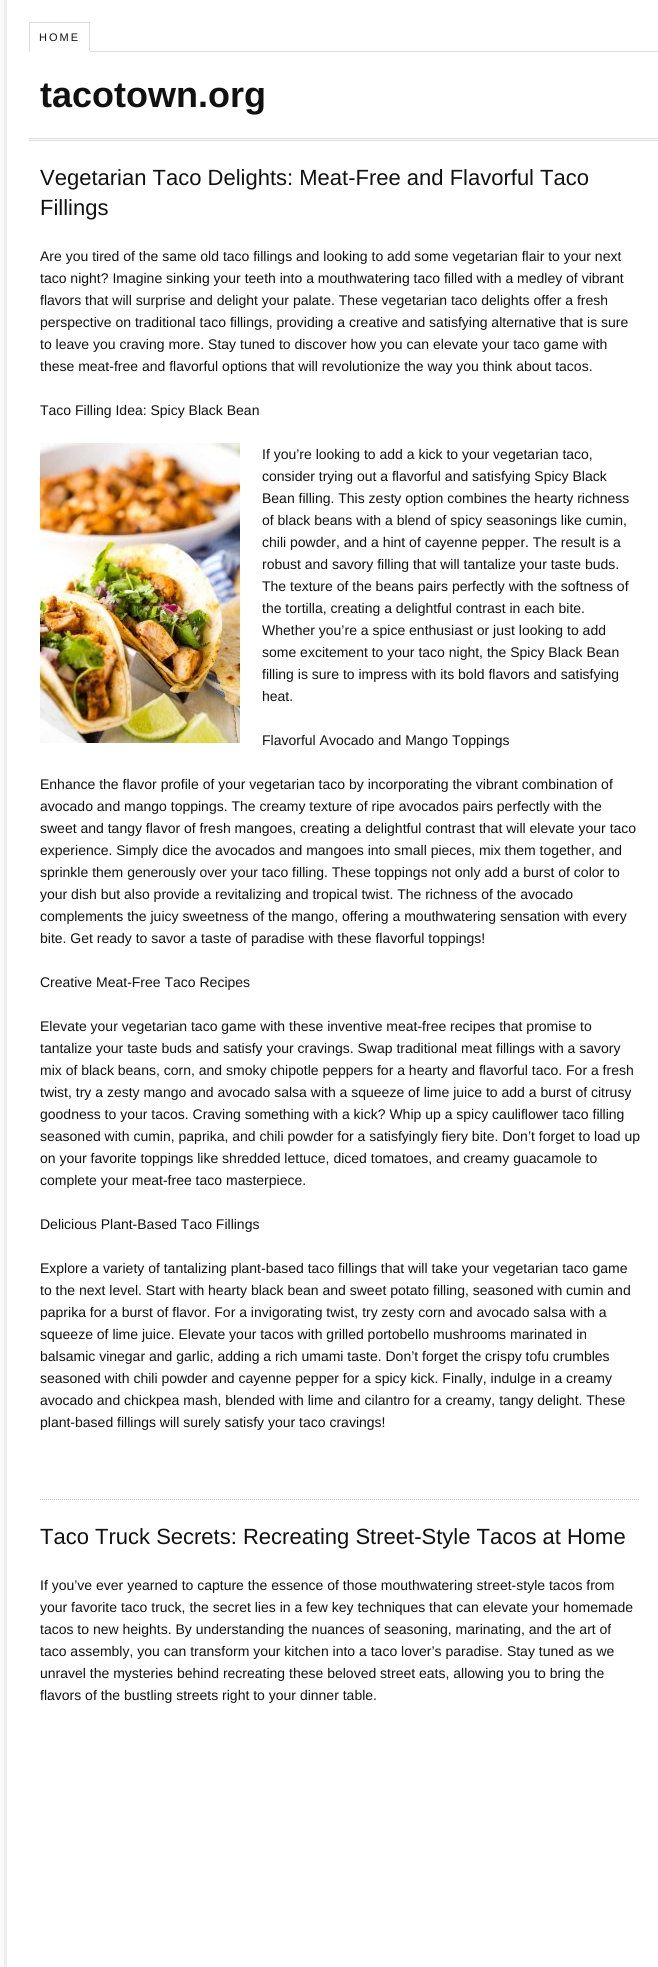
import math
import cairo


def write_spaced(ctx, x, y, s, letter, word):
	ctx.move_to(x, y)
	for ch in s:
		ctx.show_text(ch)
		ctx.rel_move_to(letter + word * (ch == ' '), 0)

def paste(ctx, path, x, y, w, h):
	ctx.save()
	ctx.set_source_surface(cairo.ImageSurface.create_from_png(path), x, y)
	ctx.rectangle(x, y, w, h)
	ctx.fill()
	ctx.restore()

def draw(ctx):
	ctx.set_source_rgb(0.929, 0.929, 0.929)
	ctx.paint()
	ctx.set_source_rgb(0.976, 0.976, 0.976)
	ctx.rectangle(0, 0, 4, 1967)
	ctx.fill()
	ctx.set_source_rgb(1, 1, 1)
	ctx.rectangle(7, 0, 651, 1967)
	ctx.fill()
	ctx.set_source_rgb(0.867, 0.867, 0.867)
	ctx.rectangle(90, 51, 568, 1)
	ctx.rectangle(29, 22, 1, 30)
	ctx.rectangle(30, 22, 60, 1)
	ctx.rectangle(89, 22, 1, 30)
	ctx.fill()
	ctx.set_source_rgb(1, 1, 1)
	ctx.rectangle(89, 51, 1, 1)
	ctx.fill()
	ctx.select_font_face('Liberation Sans')
	ctx.set_font_size(11)
	ctx.set_source_rgb(0.067, 0.067, 0.067)
	write_spaced(ctx, 39, 41, 'HOME', 2, 0)
	ctx.set_source_rgb(0.867, 0.867, 0.867)
	ctx.rectangle(29, 138, 629, 1)
	ctx.fill()
	ctx.rectangle(29, 140, 629, 1)
	ctx.fill()
	ctx.select_font_face('Liberation Sans', cairo.FONT_SLANT_NORMAL, cairo.FONT_WEIGHT_BOLD)
	ctx.set_font_size(36)
	ctx.set_source_rgb(0.067, 0.067, 0.067)
	ctx.move_to(40, 107)
	ctx.show_text('tacotown.org')
	ctx.select_font_face('Liberation Sans')
	ctx.set_font_size(22)
	ctx.move_to(40, 185)
	ctx.show_text('Vegetarian Taco Delights: Meat-Free and Flavorful Taco')
	ctx.move_to(40, 215)
	ctx.show_text('Fillings')
	ctx.set_font_size(14)
	for x, y, s in [
		(40, 261, 'Are you tired of the same old taco fillings and looking to add some vegetarian flair to your next'),
		(40, 283, 'taco night? Imagine sinking your teeth into a mouthwatering taco filled with a medley of vibrant'),
		(40, 305, 'flavors that will surprise and delight your palate. These vegetarian taco delights offer a fresh'),
		(40, 327, 'perspective on traditional taco fillings, providing a creative and satisfying alternative that is sure'),
		(40, 349, 'to leave you craving more. Stay tuned to discover how you can elevate your taco game with'),
		(40, 371, 'these meat-free and flavorful options that will revolutionize the way you think about tacos.'),
		(40, 415, 'Taco Filling Idea: Spicy Black Bean'),
	]:
		ctx.move_to(x, y)
		ctx.show_text(s)
	paste(ctx, 'media/1.png', 40, 443, 200, 300)
	for x, y, s in [
		(262, 459, 'If you’re looking to add a kick to your vegetarian taco,'),
		(262, 481, 'consider trying out a flavorful and satisfying Spicy Black'),
		(262, 503, 'Bean filling. This zesty option combines the hearty richness'),
		(262, 525, 'of black beans with a blend of spicy seasonings like cumin,'),
		(262, 547, 'chili powder, and a hint of cayenne pepper. The result is a'),
		(262, 569, 'robust and savory filling that will tantalize your taste buds.'),
		(262, 591, 'The texture of the beans pairs perfectly with the softness of'),
		(262, 613, 'the tortilla, creating a delightful contrast in each bite.'),
		(262, 635, 'Whether you’re a spice enthusiast or just looking to add'),
		(262, 657, 'some excitement to your taco night, the Spicy Black Bean'),
		(262, 679, 'filling is sure to impress with its bold flavors and satisfying'),
		(262, 701, 'heat.'),
		(262, 745, 'Flavorful Avocado and Mango Toppings'),
		(40, 789, 'Enhance the flavor profile of your vegetarian taco by incorporating the vibrant combination of'),
		(40, 811, 'avocado and mango toppings. The creamy texture of ripe avocados pairs perfectly with the'),
		(40, 833, 'sweet and tangy flavor of fresh mangoes, creating a delightful contrast that will elevate your taco'),
		(40, 855, 'experience. Simply dice the avocados and mangoes into small pieces, mix them together, and'),
		(40, 877, 'sprinkle them generously over your taco filling. These toppings not only add a burst of color to'),
		(40, 899, 'your dish but also provide a revitalizing and tropical twist. The richness of the avocado'),
		(40, 921, 'complements the juicy sweetness of the mango, offering a mouthwatering sensation with every'),
		(40, 943, 'bite. Get ready to savor a taste of paradise with these flavorful toppings!'),
		(40, 987, 'Creative Meat-Free Taco Recipes'),
		(40, 1031, 'Elevate your vegetarian taco game with these inventive meat-free recipes that promise to'),
		(40, 1053, 'tantalize your taste buds and satisfy your cravings. Swap traditional meat fillings with a savory'),
		(40, 1075, 'mix of black beans, corn, and smoky chipotle peppers for a hearty and flavorful taco. For a fresh'),
		(40, 1097, 'twist, try a zesty mango and avocado salsa with a squeeze of lime juice to add a burst of citrusy'),
		(40, 1119, 'goodness to your tacos. Craving something with a kick? Whip up a spicy cauliflower taco filling'),
		(40, 1141, 'seasoned with cumin, paprika, and chili powder for a satisfyingly fiery bite. Don’t forget to load up'),
		(40, 1163, 'on your favorite toppings like shredded lettuce, diced tomatoes, and creamy guacamole to'),
		(40, 1185, 'complete your meat-free taco masterpiece.'),
		(40, 1229, 'Delicious Plant-Based Taco Fillings'),
		(40, 1273, 'Explore a variety of tantalizing plant-based taco fillings that will take your vegetarian taco game'),
		(40, 1295, 'to the next level. Start with hearty black bean and sweet potato filling, seasoned with cumin and'),
		(40, 1317, 'paprika for a burst of flavor. For a invigorating twist, try zesty corn and avocado salsa with a'),
		(40, 1339, 'squeeze of lime juice. Elevate your tacos with grilled portobello mushrooms marinated in'),
		(40, 1361, 'balsamic vinegar and garlic, adding a rich umami taste. Don’t forget the crispy tofu crumbles'),
		(40, 1383, 'seasoned with chili powder and cayenne pepper for a spicy kick. Finally, indulge in a creamy'),
		(40, 1405, 'avocado and chickpea mash, blended with lime and cilantro for a creamy, tangy delight. These'),
		(40, 1427, 'plant-based fillings will surely satisfy your taco cravings!'),
	]:
		ctx.move_to(x, y)
		ctx.show_text(s)
	ctx.new_path()
	ctx.move_to(40, 1499.5)
	ctx.line_to(640, 1499.5)
	ctx.set_source_rgb(0.733, 0.733, 0.733)
	ctx.set_line_width(1)
	ctx.set_dash([1, 1])
	ctx.stroke()
	ctx.set_font_size(22)
	ctx.set_source_rgb(0.067, 0.067, 0.067)
	ctx.move_to(40, 1544)
	ctx.show_text('Taco Truck Secrets: Recreating Street-Style Tacos at Home')
	ctx.set_font_size(14)
	for x, y, s in [
		(40, 1590, 'If you’ve ever yearned to capture the essence of those mouthwatering street-style tacos from'),
		(40, 1612, 'your favorite taco truck, the secret lies in a few key techniques that can elevate your homemade'),
		(40, 1634, 'tacos to new heights. By understanding the nuances of seasoning, marinating, and the art of'),
		(40, 1656, 'taco assembly, you can transform your kitchen into a taco lover’s paradise. Stay tuned as we'),
		(40, 1678, 'unravel the mysteries behind recreating these beloved street eats, allowing you to bring the'),
		(40, 1700, 'flavors of the bustling streets right to your dinner table.'),
	]:
		ctx.move_to(x, y)
		ctx.show_text(s)


surface = cairo.ImageSurface(cairo.FORMAT_RGB24, 658, 1967)
ctx = cairo.Context(surface)
options = cairo.FontOptions()
options.set_hint_metrics(cairo.HINT_METRICS_OFF)
options.set_hint_style(cairo.HINT_STYLE_NONE)
ctx.set_font_options(options)
ctx.set_miter_limit(4)
draw(ctx)
surface.write_to_png('image.png')
